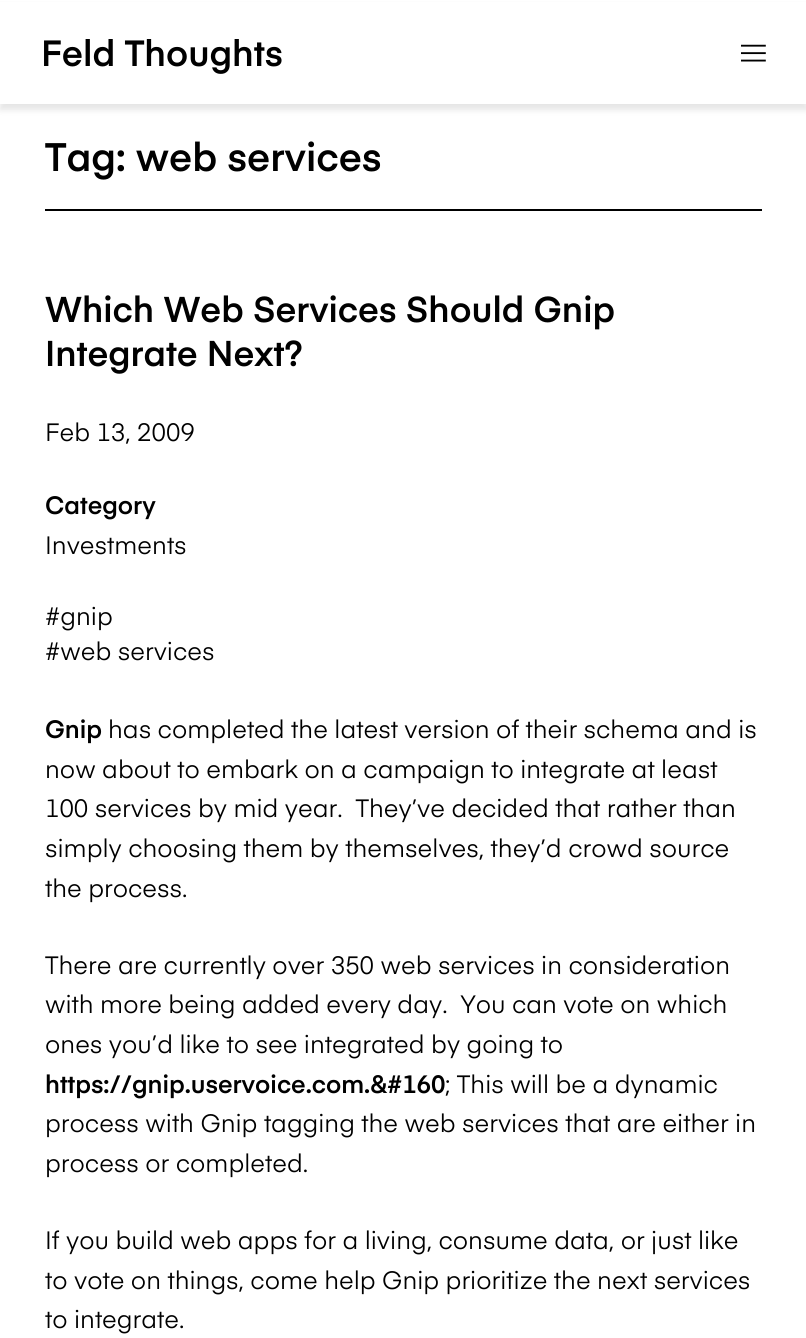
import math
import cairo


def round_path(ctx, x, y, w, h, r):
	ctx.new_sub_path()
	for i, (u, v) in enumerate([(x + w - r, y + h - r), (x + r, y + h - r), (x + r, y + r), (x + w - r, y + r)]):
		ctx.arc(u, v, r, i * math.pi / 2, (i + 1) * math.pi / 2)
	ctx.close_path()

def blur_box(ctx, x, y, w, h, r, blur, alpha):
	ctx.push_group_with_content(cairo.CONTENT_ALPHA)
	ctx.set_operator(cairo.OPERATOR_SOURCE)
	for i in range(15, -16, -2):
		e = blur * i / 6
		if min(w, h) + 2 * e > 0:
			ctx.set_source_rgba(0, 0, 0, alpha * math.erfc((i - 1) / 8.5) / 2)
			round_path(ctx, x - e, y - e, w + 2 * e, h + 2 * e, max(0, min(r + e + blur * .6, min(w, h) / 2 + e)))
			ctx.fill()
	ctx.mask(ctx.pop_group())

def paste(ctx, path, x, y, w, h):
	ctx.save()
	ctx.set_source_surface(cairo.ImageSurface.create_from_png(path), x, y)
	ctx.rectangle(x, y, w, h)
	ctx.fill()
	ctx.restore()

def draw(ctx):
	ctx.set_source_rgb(1, 1, 1)
	ctx.paint()
	ctx.set_source_rgb(0, 0, 0)
	blur_box(ctx, 0, 6, 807, 104, 0, 3, 0.1)
	ctx.set_source_rgb(1, 1, 1)
	ctx.rectangle(0, 2, 806, 102)
	ctx.fill()
	ctx.select_font_face('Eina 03 SemiBold')
	ctx.set_font_size(36)
	ctx.set_source_rgb(0, 0, 0)
	ctx.move_to(41, 66)
	ctx.show_text('Feld Thoughts')
	paste(ctx, 'media/1.png', 741, 44, 25, 18)
	ctx.rectangle(45, 209, 717, 2)
	ctx.fill()
	ctx.set_font_size(39.25)
	ctx.move_to(45, 171)
	ctx.show_text('Tag: web services')
	ctx.set_font_size(35.4)
	ctx.move_to(45, 322)
	ctx.show_text('Which Web Services Should Gnip')
	ctx.move_to(45, 366)
	ctx.show_text('Integrate Next?')
	ctx.select_font_face('Eina 03')
	ctx.set_font_size(24.8)
	ctx.move_to(45, 441)
	ctx.show_text('Feb 13, 2009')
	ctx.select_font_face('Eina 03 SemiBold')
	ctx.move_to(45, 514)
	ctx.show_text('Category')
	ctx.select_font_face('Eina 03')
	for x, y, s in [
		(45, 554, 'Investments'),
		(45, 625, '#gnip'),
		(45, 660, '#web services'),
	]:
		ctx.move_to(x, y)
		ctx.show_text(s)
	ctx.select_font_face('Eina 03 SemiBold')
	ctx.move_to(45, 738)
	ctx.show_text('Gnip')
	ctx.select_font_face('Eina 03')
	for x, y, s in [
		(108, 738, 'has completed the latest version of their schema and is'),
		(45, 778, 'now about to embark on a campaign to integrate at least'),
		(45, 817, '100 services by mid year.  They’ve decided that rather than'),
		(45, 857, 'simply choosing them by themselves, they’d crowd source'),
		(45, 897, 'the process.'),
		(45, 974, 'There are currently over 350 web services in consideration'),
		(45, 1013, 'with more being added every day.  You can vote on which'),
		(45, 1053, 'ones you’d like to see integrated by going to'),
	]:
		ctx.move_to(x, y)
		ctx.show_text(s)
	ctx.select_font_face('Eina 03 SemiBold')
	ctx.move_to(45, 1093)
	ctx.show_text('https://gnip.uservoice.com.&#160')
	ctx.select_font_face('Eina 03')
	for x, y, s in [
		(445, 1093, '; This will be a dynamic'),
		(45, 1132, 'process with Gnip tagging the web services that are either in'),
		(45, 1172, 'process or completed.'),
		(45, 1249, 'If you build web apps for a living, consume data, or just like'),
		(45, 1289, 'to vote on things, come help Gnip prioritize the next services'),
		(45, 1328, 'to integrate.'),
	]:
		ctx.move_to(x, y)
		ctx.show_text(s)


surface = cairo.ImageSurface(cairo.FORMAT_RGB24, 806, 1338)
ctx = cairo.Context(surface)
options = cairo.FontOptions()
options.set_hint_metrics(cairo.HINT_METRICS_OFF)
options.set_hint_style(cairo.HINT_STYLE_NONE)
ctx.set_font_options(options)
ctx.set_miter_limit(4)
draw(ctx)
surface.write_to_png('image.png')
